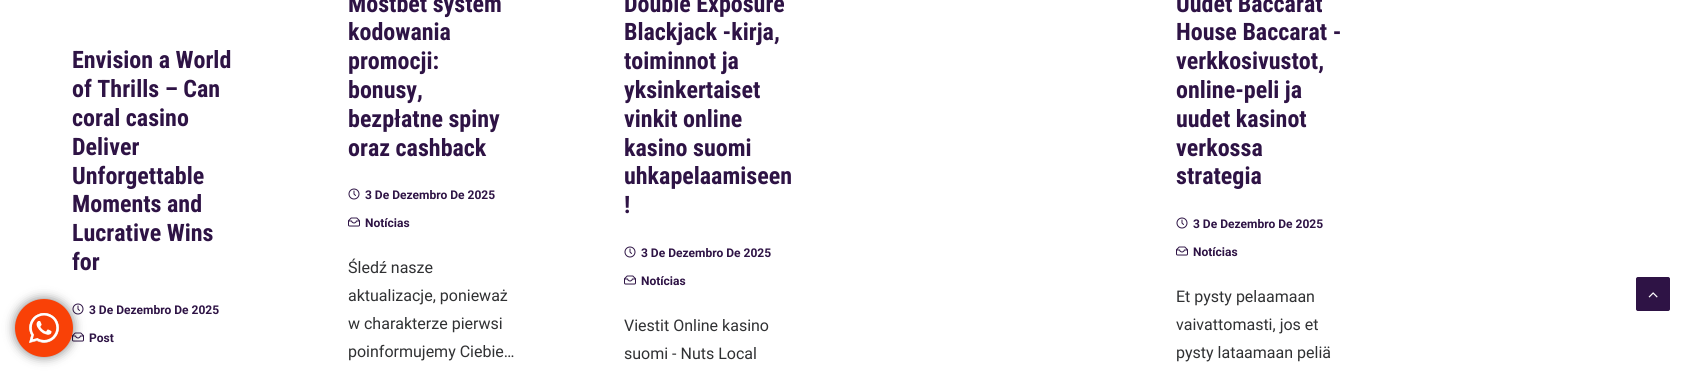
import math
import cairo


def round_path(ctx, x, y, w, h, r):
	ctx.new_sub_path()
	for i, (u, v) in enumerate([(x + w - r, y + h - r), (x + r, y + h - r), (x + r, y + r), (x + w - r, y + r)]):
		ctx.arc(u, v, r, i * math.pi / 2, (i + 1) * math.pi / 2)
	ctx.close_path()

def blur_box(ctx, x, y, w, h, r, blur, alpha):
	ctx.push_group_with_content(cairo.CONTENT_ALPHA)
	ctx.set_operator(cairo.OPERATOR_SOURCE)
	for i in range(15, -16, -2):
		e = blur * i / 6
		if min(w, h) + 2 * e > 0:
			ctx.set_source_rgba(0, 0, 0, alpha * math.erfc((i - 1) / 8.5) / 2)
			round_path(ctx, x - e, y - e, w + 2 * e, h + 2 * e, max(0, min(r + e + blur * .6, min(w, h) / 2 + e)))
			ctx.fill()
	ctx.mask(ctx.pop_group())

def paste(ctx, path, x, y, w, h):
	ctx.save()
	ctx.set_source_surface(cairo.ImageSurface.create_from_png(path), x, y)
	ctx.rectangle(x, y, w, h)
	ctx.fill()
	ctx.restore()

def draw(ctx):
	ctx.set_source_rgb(1, 1, 1)
	ctx.paint()
	paste(ctx, 'media/2.png', 72, 303, 12, 12)
	paste(ctx, 'media/3.png', 72, 332, 12, 10)
	ctx.set_source_rgb(0, 0, 0)
	blur_box(ctx, 15, 299, 58, 58, 29, 5.5, 0.5)
	ctx.set_source_rgb(0.973, 0.255, 0.031)
	ctx.arc(44, 328, 29, 0, 2 * math.pi)
	ctx.fill()
	paste(ctx, 'media/1.png', 29, 313, 30, 30)
	ctx.select_font_face('Roboto Condensed', cairo.FONT_SLANT_NORMAL, cairo.FONT_WEIGHT_BOLD)
	ctx.set_font_size(24)
	ctx.set_source_rgb(0.18, 0.078, 0.271)
	for x, y, s in [
		(72, 68, 'Envision a World'),
		(72, 97, 'of Thrills – Can'),
		(72, 126, 'coral casino'),
		(72, 155, 'Deliver'),
		(72, 184, 'Unforgettable'),
		(72, 212, 'Moments and'),
		(72, 241, 'Lucrative Wins'),
		(72, 270, 'for'),
	]:
		ctx.move_to(x, y)
		ctx.show_text(s)
	ctx.select_font_face('Roboto', cairo.FONT_SLANT_NORMAL, cairo.FONT_WEIGHT_BOLD)
	ctx.set_font_size(12)
	ctx.move_to(89, 314)
	ctx.show_text('3 De Dezembro De 2025')
	ctx.move_to(89, 342)
	ctx.show_text('Post')
	ctx.select_font_face('Roboto Condensed', cairo.FONT_SLANT_NORMAL, cairo.FONT_WEIGHT_BOLD)
	ctx.set_font_size(24)
	for x, y, s in [
		(348, 12, 'Mostbet system'),
		(348, 40, 'kodowania'),
		(348, 69, 'promocji:'),
		(348, 98, 'bonusy,'),
		(348, 127, 'bezpłatne spiny'),
		(348, 156, 'oraz cashback'),
	]:
		ctx.move_to(x, y)
		ctx.show_text(s)
	paste(ctx, 'media/2.png', 348, 188, 12, 12)
	ctx.select_font_face('Roboto', cairo.FONT_SLANT_NORMAL, cairo.FONT_WEIGHT_BOLD)
	ctx.set_font_size(12)
	ctx.move_to(365, 199)
	ctx.show_text('3 De Dezembro De 2025')
	paste(ctx, 'media/3.png', 348, 217, 12, 10)
	ctx.move_to(365, 227)
	ctx.show_text('Notícias')
	ctx.select_font_face('Roboto')
	ctx.set_font_size(16)
	ctx.set_source_rgb(0.188, 0.192, 0.2)
	for x, y, s in [
		(348, 273, 'Śledź nasze'),
		(348, 301, 'aktualizacje, ponieważ'),
		(348, 329, 'w charakterze pierwsi'),
		(348, 357, 'poinformujemy Ciebie…'),
	]:
		ctx.move_to(x, y)
		ctx.show_text(s)
	ctx.select_font_face('Roboto Condensed', cairo.FONT_SLANT_NORMAL, cairo.FONT_WEIGHT_BOLD)
	ctx.set_font_size(24)
	ctx.set_source_rgb(0.18, 0.078, 0.271)
	for x, y, s in [
		(624, 12, 'Double Exposure'),
		(624, 40, 'Blackjack -kirja,'),
		(624, 69, 'toiminnot ja'),
		(624, 98, 'yksinkertaiset'),
		(624, 127, 'vinkit online'),
		(624, 156, 'kasino suomi'),
		(624, 184, 'uhkapelaamiseen'),
		(624, 213, '!'),
	]:
		ctx.move_to(x, y)
		ctx.show_text(s)
	paste(ctx, 'media/2.png', 624, 246, 12, 12)
	ctx.select_font_face('Roboto', cairo.FONT_SLANT_NORMAL, cairo.FONT_WEIGHT_BOLD)
	ctx.set_font_size(12)
	ctx.move_to(641, 257)
	ctx.show_text('3 De Dezembro De 2025')
	paste(ctx, 'media/3.png', 624, 275, 12, 10)
	ctx.move_to(641, 285)
	ctx.show_text('Notícias')
	ctx.select_font_face('Roboto')
	ctx.set_font_size(16)
	ctx.set_source_rgb(0.188, 0.192, 0.2)
	ctx.move_to(624, 331)
	ctx.show_text('Viestit Online kasino')
	ctx.move_to(624, 359)
	ctx.show_text('suomi - Nuts Local')
	ctx.select_font_face('Roboto Condensed', cairo.FONT_SLANT_NORMAL, cairo.FONT_WEIGHT_BOLD)
	ctx.set_font_size(24)
	ctx.set_source_rgb(0.18, 0.078, 0.271)
	for x, y, s in [
		(1176, 12, 'Uudet Baccarat'),
		(1176, 40, 'House Baccarat -'),
		(1176, 69, 'verkkosivustot,'),
		(1176, 98, 'online-peli ja'),
		(1176, 127, 'uudet kasinot'),
		(1176, 156, 'verkossa'),
		(1176, 184, 'strategia'),
	]:
		ctx.move_to(x, y)
		ctx.show_text(s)
	paste(ctx, 'media/2.png', 1176, 217, 12, 12)
	ctx.select_font_face('Roboto', cairo.FONT_SLANT_NORMAL, cairo.FONT_WEIGHT_BOLD)
	ctx.set_font_size(12)
	ctx.move_to(1193, 228)
	ctx.show_text('3 De Dezembro De 2025')
	paste(ctx, 'media/3.png', 1176, 246, 12, 10)
	ctx.move_to(1193, 256)
	ctx.show_text('Notícias')
	ctx.select_font_face('Roboto')
	ctx.set_font_size(16)
	ctx.set_source_rgb(0.188, 0.192, 0.2)
	for x, y, s in [
		(1176, 302, 'Et pysty pelaamaan'),
		(1176, 330, 'vaivattomasti, jos et'),
		(1176, 358, 'pysty lataamaan peliä'),
	]:
		ctx.move_to(x, y)
		ctx.show_text(s)
	ctx.set_source_rgb(0.18, 0.078, 0.271)
	round_path(ctx, 1636.5, 277.5, 33, 33, 1.5)
	ctx.fill_preserve()
	ctx.set_line_width(1)
	ctx.stroke()
	paste(ctx, 'media/4.png', 1648, 292, 10, 6)


surface = cairo.ImageSurface(cairo.FORMAT_RGB24, 1692, 372)
ctx = cairo.Context(surface)
options = cairo.FontOptions()
options.set_hint_metrics(cairo.HINT_METRICS_OFF)
options.set_hint_style(cairo.HINT_STYLE_NONE)
ctx.set_font_options(options)
ctx.set_miter_limit(4)
draw(ctx)
surface.write_to_png('image.png')
